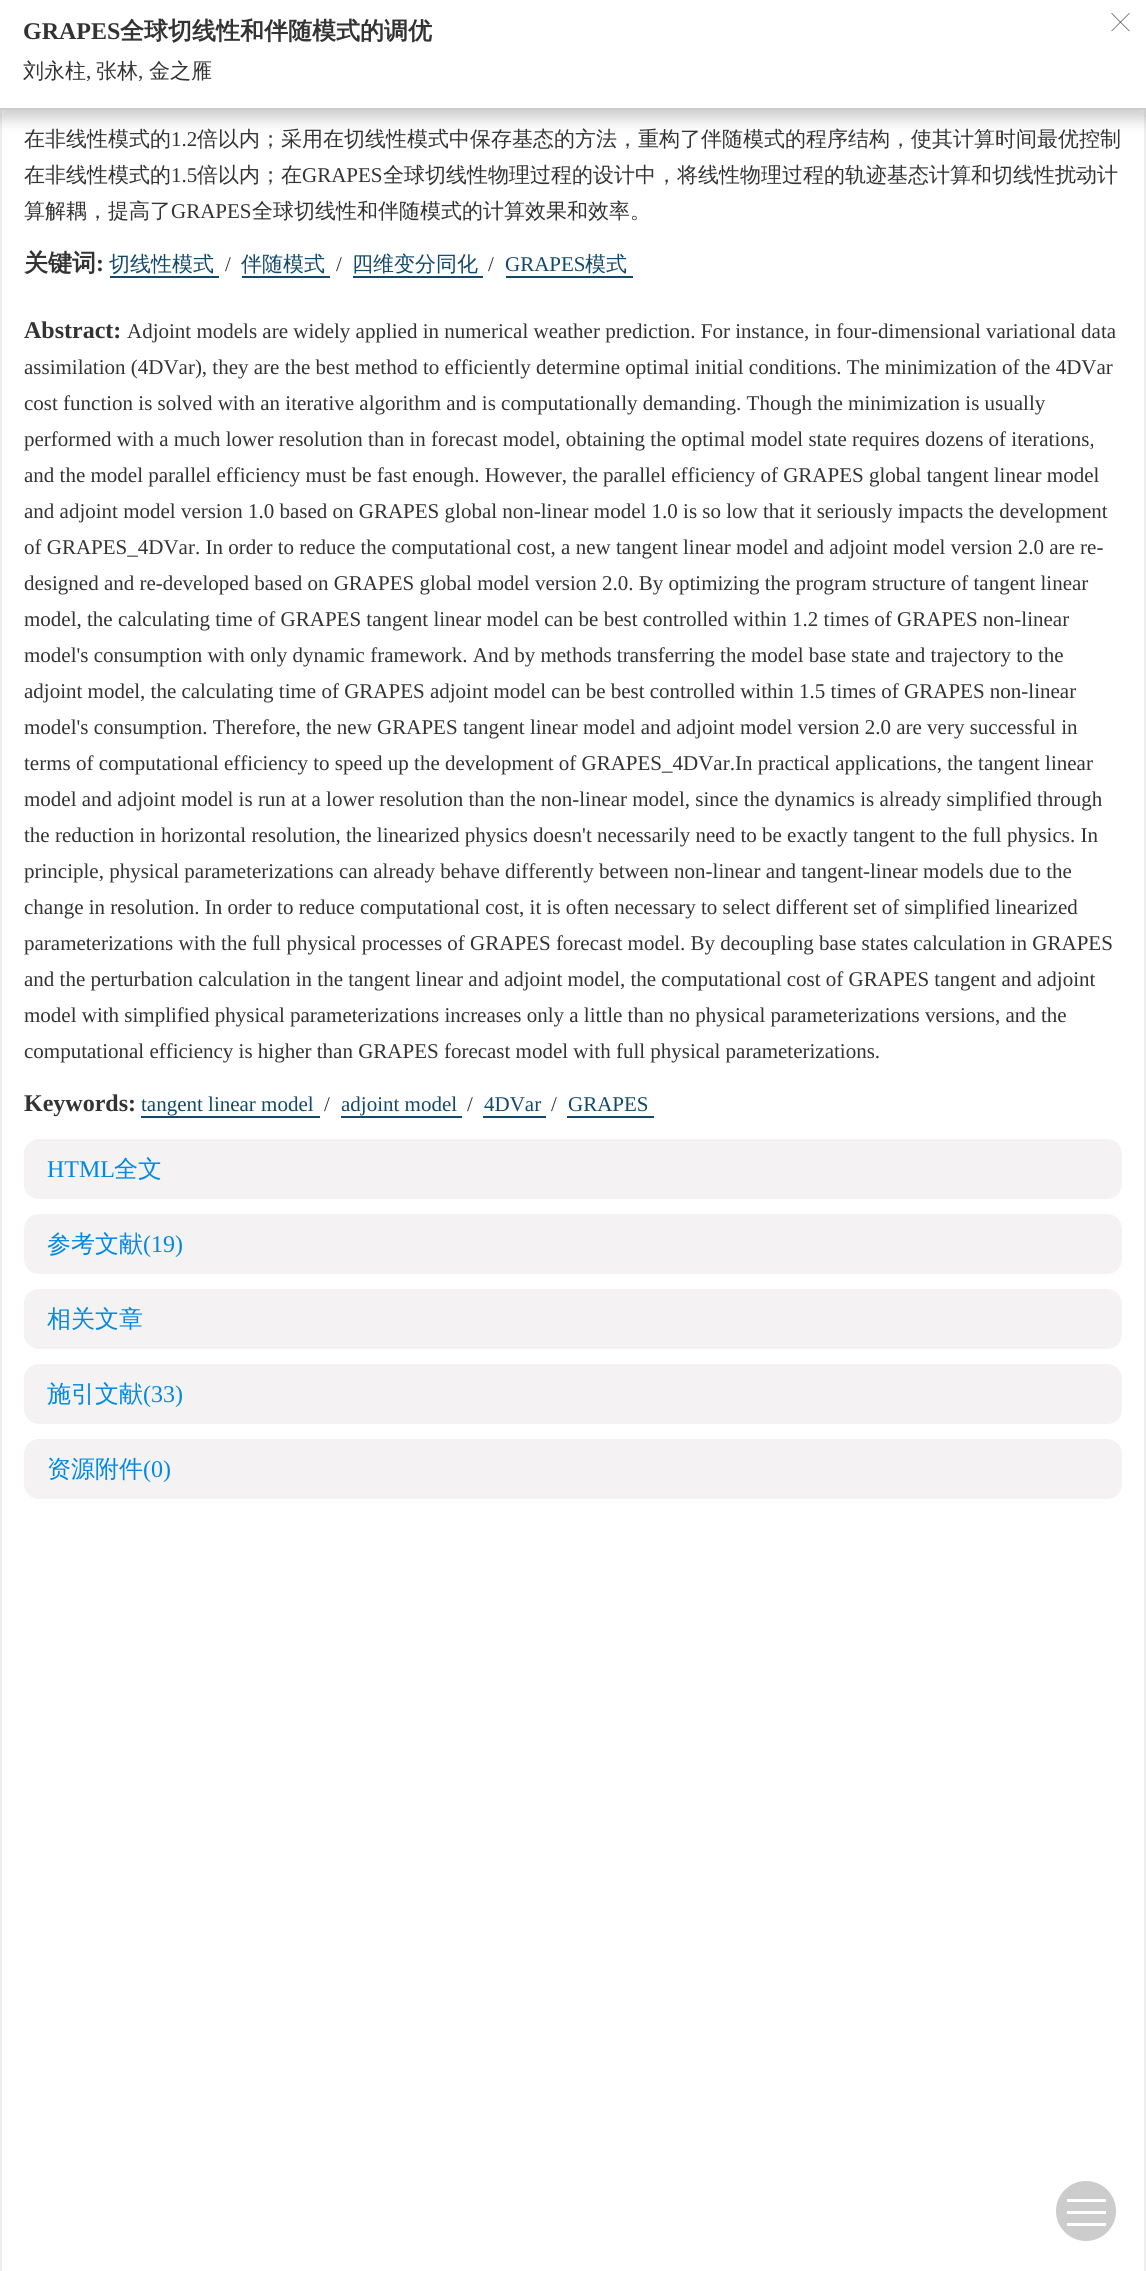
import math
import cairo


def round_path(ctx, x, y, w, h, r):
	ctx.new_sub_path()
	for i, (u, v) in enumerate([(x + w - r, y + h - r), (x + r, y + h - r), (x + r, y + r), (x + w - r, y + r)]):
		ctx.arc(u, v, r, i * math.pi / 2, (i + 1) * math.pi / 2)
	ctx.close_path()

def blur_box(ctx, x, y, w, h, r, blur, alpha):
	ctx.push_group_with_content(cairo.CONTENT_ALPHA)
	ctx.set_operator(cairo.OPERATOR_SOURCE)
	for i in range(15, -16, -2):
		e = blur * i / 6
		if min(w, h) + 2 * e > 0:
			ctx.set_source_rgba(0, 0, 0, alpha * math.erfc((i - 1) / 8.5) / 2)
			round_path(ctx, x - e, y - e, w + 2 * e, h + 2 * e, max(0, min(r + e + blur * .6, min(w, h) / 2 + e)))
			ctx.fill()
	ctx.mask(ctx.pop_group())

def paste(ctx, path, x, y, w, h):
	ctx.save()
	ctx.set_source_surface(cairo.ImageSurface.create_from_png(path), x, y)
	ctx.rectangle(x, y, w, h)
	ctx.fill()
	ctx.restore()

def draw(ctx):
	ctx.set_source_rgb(1, 1, 1)
	ctx.paint()
	ctx.rectangle(1, -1, 1144, 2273)
	ctx.set_source_rgb(0.933, 0.933, 0.933)
	ctx.stroke()
	ctx.set_source_rgb(0, 0, 0)
	blur_box(ctx, -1, 6, 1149, 113, 0, 7.5, 0.2)
	ctx.set_source_rgb(1, 1, 1)
	ctx.rectangle(0, 0, 1146, 108)
	ctx.fill()
	ctx.set_source_rgb(0.8, 0.8, 0.8)
	ctx.rectangle(0, 108, 1146, 2)
	ctx.fill()
	ctx.select_font_face('Liberation Serif', cairo.FONT_SLANT_NORMAL, cairo.FONT_WEIGHT_BOLD)
	ctx.set_font_size(24)
	ctx.set_source_rgb(0.2, 0.2, 0.2)
	ctx.move_to(23, 39)
	ctx.show_text('GRAPES')
	ctx.select_font_face('WenQuanYi Zen Hei', cairo.FONT_SLANT_NORMAL, cairo.FONT_WEIGHT_BOLD)
	ctx.move_to(120, 39)
	ctx.show_text('全球切线性和伴随模式的调优')
	ctx.select_font_face('WenQuanYi Zen Hei Medium')
	ctx.set_font_size(21)
	ctx.move_to(23, 78)
	ctx.show_text('刘永柱')
	ctx.select_font_face('Liberation Serif')
	ctx.move_to(86, 78)
	ctx.show_text(',')
	ctx.select_font_face('WenQuanYi Zen Hei Medium')
	ctx.move_to(96, 78)
	ctx.show_text('张林')
	ctx.select_font_face('Liberation Serif')
	ctx.move_to(138, 78)
	ctx.show_text(',')
	ctx.select_font_face('WenQuanYi Zen Hei Medium')
	ctx.move_to(149, 78)
	ctx.show_text('金之雁')
	paste(ctx, 'media/1.png', 1111, 13, 19, 19)
	ctx.move_to(24, 146)
	ctx.show_text('在非线性模式的')
	ctx.select_font_face('Liberation Serif')
	ctx.move_to(171, 146)
	ctx.show_text('1.2')
	ctx.select_font_face('WenQuanYi Zen Hei Medium')
	ctx.move_to(197, 146)
	ctx.show_text('倍以内；采用在切线性模式中保存基态的方法，重构了伴随模式的程序结构，使其计算时间最优控制')
	ctx.move_to(24, 182)
	ctx.show_text('在非线性模式的')
	ctx.select_font_face('Liberation Serif')
	ctx.move_to(171, 182)
	ctx.show_text('1.5')
	ctx.select_font_face('WenQuanYi Zen Hei Medium')
	ctx.move_to(197, 182)
	ctx.show_text('倍以内；在')
	ctx.select_font_face('Liberation Serif')
	ctx.move_to(302, 182)
	ctx.show_text('GRAPES')
	ctx.select_font_face('WenQuanYi Zen Hei Medium')
	ctx.move_to(383, 182)
	ctx.show_text('全球切线性物理过程的设计中，将线性物理过程的轨迹基态计算和切线性扰动计')
	ctx.move_to(24, 218)
	ctx.show_text('算解耦，提高了')
	ctx.select_font_face('Liberation Serif')
	ctx.move_to(171, 218)
	ctx.show_text('GRAPES')
	ctx.select_font_face('WenQuanYi Zen Hei Medium')
	ctx.move_to(252, 218)
	ctx.show_text('全球切线性和伴随模式的计算效果和效率。')
	ctx.select_font_face('WenQuanYi Zen Hei', cairo.FONT_SLANT_NORMAL, cairo.FONT_WEIGHT_BOLD)
	ctx.set_font_size(24)
	ctx.move_to(24, 271)
	ctx.show_text('关键词')
	ctx.select_font_face('Liberation Serif', cairo.FONT_SLANT_NORMAL, cairo.FONT_WEIGHT_BOLD)
	ctx.move_to(96, 271)
	ctx.show_text(':')
	ctx.select_font_face('WenQuanYi Zen Hei Medium')
	ctx.set_font_size(21)
	ctx.set_source_rgb(0.067, 0.286, 0.416)
	ctx.move_to(109, 271)
	ctx.show_text('切线性模式')
	ctx.rectangle(110, 276, 109, 2)
	ctx.fill()
	ctx.select_font_face('Liberation Serif')
	ctx.set_source_rgb(0.2, 0.2, 0.2)
	ctx.move_to(225, 271)
	ctx.show_text('/')
	ctx.select_font_face('WenQuanYi Zen Hei Medium')
	ctx.set_source_rgb(0.067, 0.286, 0.416)
	ctx.move_to(241, 271)
	ctx.show_text('伴随模式')
	ctx.rectangle(242, 276, 88, 2)
	ctx.fill()
	ctx.select_font_face('Liberation Serif')
	ctx.set_source_rgb(0.2, 0.2, 0.2)
	ctx.move_to(336, 271)
	ctx.show_text('/')
	ctx.select_font_face('WenQuanYi Zen Hei Medium')
	ctx.set_source_rgb(0.067, 0.286, 0.416)
	ctx.move_to(352, 271)
	ctx.show_text('四维变分同化')
	ctx.rectangle(353, 276, 130, 2)
	ctx.fill()
	ctx.select_font_face('Liberation Serif')
	ctx.set_source_rgb(0.2, 0.2, 0.2)
	ctx.move_to(488, 271)
	ctx.show_text('/')
	ctx.set_source_rgb(0.067, 0.286, 0.416)
	ctx.move_to(505, 271)
	ctx.show_text('GRAPES')
	ctx.rectangle(506, 276, 127, 2)
	ctx.fill()
	ctx.select_font_face('WenQuanYi Zen Hei Medium')
	ctx.move_to(585, 271)
	ctx.show_text('模式')
	ctx.select_font_face('Liberation Serif', cairo.FONT_SLANT_NORMAL, cairo.FONT_WEIGHT_BOLD)
	ctx.set_font_size(24)
	ctx.set_source_rgb(0.2, 0.2, 0.2)
	ctx.move_to(24, 338)
	ctx.show_text('Abstract:')
	ctx.select_font_face('Liberation Serif')
	ctx.set_font_size(21)
	for x, y, s in [
		(127, 338, 'Adjoint models are widely applied in numerical weather prediction. For instance, in four-dimensional variational data'),
		(24, 374, 'assimilation (4DVar), they are the best method to efficiently determine optimal initial conditions. The minimization of the 4DVar'),
		(24, 410, 'cost function is solved with an iterative algorithm and is computationally demanding. Though the minimization is usually'),
		(24, 446, 'performed with a much lower resolution than in forecast model, obtaining the optimal model state requires dozens of iterations,'),
		(24, 482, 'and the model parallel efficiency must be fast enough. However, the parallel efficiency of GRAPES global tangent linear model'),
		(24, 518, 'and adjoint model version 1.0 based on GRAPES global non-linear model 1.0 is so low that it seriously impacts the development'),
		(24, 554, 'of GRAPES_4DVar. In order to reduce the computational cost, a new tangent linear model and adjoint model version 2.0 are re-'),
		(24, 590, 'designed and re-developed based on GRAPES global model version 2.0. By optimizing the program structure of tangent linear'),
		(24, 626, 'model, the calculating time of GRAPES tangent linear model can be best controlled within 1.2 times of GRAPES non-linear'),
		(24, 662, 'model\'s consumption with only dynamic framework. And by methods transferring the model base state and trajectory to the'),
		(24, 698, 'adjoint model, the calculating time of GRAPES adjoint model can be best controlled within 1.5 times of GRAPES non-linear'),
		(24, 734, 'model\'s consumption. Therefore, the new GRAPES tangent linear model and adjoint model version 2.0 are very successful in'),
		(24, 770, 'terms of computational efficiency to speed up the development of GRAPES_4DVar.In practical applications, the tangent linear'),
		(24, 806, 'model and adjoint model is run at a lower resolution than the non-linear model, since the dynamics is already simplified through'),
		(24, 842, 'the reduction in horizontal resolution, the linearized physics doesn\'t necessarily need to be exactly tangent to the full physics. In'),
		(24, 878, 'principle, physical parameterizations can already behave differently between non-linear and tangent-linear models due to the'),
		(24, 914, 'change in resolution. In order to reduce computational cost, it is often necessary to select different set of simplified linearized'),
		(24, 950, 'parameterizations with the full physical processes of GRAPES forecast model. By decoupling base states calculation in GRAPES'),
		(24, 986, 'and the perturbation calculation in the tangent linear and adjoint model, the computational cost of GRAPES tangent and adjoint'),
		(24, 1022, 'model with simplified physical parameterizations increases only a little than no physical parameterizations versions, and the'),
		(24, 1058, 'computational efficiency is higher than GRAPES forecast model with full physical parameterizations.'),
	]:
		ctx.move_to(x, y)
		ctx.show_text(s)
	ctx.select_font_face('Liberation Serif', cairo.FONT_SLANT_NORMAL, cairo.FONT_WEIGHT_BOLD)
	ctx.set_font_size(24)
	ctx.move_to(24, 1111)
	ctx.show_text('Keywords:')
	ctx.select_font_face('Liberation Serif')
	ctx.set_font_size(21)
	ctx.set_source_rgb(0.067, 0.286, 0.416)
	ctx.move_to(141, 1111)
	ctx.show_text('tangent linear model')
	ctx.rectangle(141, 1116, 179, 2)
	ctx.fill()
	ctx.set_source_rgb(0.2, 0.2, 0.2)
	ctx.move_to(324, 1111)
	ctx.show_text('/')
	ctx.set_source_rgb(0.067, 0.286, 0.416)
	ctx.move_to(341, 1111)
	ctx.show_text('adjoint model')
	ctx.rectangle(341, 1116, 121, 2)
	ctx.fill()
	ctx.set_source_rgb(0.2, 0.2, 0.2)
	ctx.move_to(467, 1111)
	ctx.show_text('/')
	ctx.set_source_rgb(0.067, 0.286, 0.416)
	ctx.move_to(484, 1111)
	ctx.show_text('4DVar')
	ctx.rectangle(483, 1116, 63, 2)
	ctx.fill()
	ctx.set_source_rgb(0.2, 0.2, 0.2)
	ctx.move_to(551, 1111)
	ctx.show_text('/')
	ctx.set_source_rgb(0.067, 0.286, 0.416)
	ctx.move_to(568, 1111)
	ctx.show_text('GRAPES')
	ctx.rectangle(567, 1116, 87, 2)
	ctx.fill()
	ctx.set_source_rgb(0.957, 0.949, 0.949)
	round_path(ctx, 24, 1139, 1098, 60, 15)
	ctx.fill()
	ctx.set_font_size(24)
	ctx.set_source_rgb(0, 0.537, 0.89)
	ctx.move_to(47, 1177)
	ctx.show_text('HTML')
	ctx.select_font_face('WenQuanYi Zen Hei Medium')
	ctx.move_to(114, 1177)
	ctx.show_text('全文')
	ctx.set_source_rgb(0.957, 0.949, 0.949)
	round_path(ctx, 24, 1214, 1098, 60, 15)
	ctx.fill()
	ctx.set_source_rgb(0, 0.537, 0.89)
	ctx.move_to(47, 1252)
	ctx.show_text('参考文献')
	ctx.select_font_face('Liberation Serif')
	ctx.move_to(143, 1252)
	ctx.show_text('(19)')
	ctx.set_source_rgb(0.957, 0.949, 0.949)
	round_path(ctx, 24, 1289, 1098, 60, 15)
	ctx.fill()
	ctx.select_font_face('WenQuanYi Zen Hei Medium')
	ctx.set_source_rgb(0, 0.537, 0.89)
	ctx.move_to(47, 1327)
	ctx.show_text('相关文章')
	ctx.set_source_rgb(0.957, 0.949, 0.949)
	round_path(ctx, 24, 1364, 1098, 60, 15)
	ctx.fill()
	ctx.set_source_rgb(0, 0.537, 0.89)
	ctx.move_to(47, 1402)
	ctx.show_text('施引文献')
	ctx.select_font_face('Liberation Serif')
	ctx.move_to(143, 1402)
	ctx.show_text('(33)')
	ctx.set_source_rgb(0.957, 0.949, 0.949)
	round_path(ctx, 24, 1439, 1098, 60, 15)
	ctx.fill()
	ctx.select_font_face('WenQuanYi Zen Hei Medium')
	ctx.set_source_rgb(0, 0.537, 0.89)
	ctx.move_to(47, 1477)
	ctx.show_text('资源附件')
	ctx.select_font_face('Liberation Serif')
	ctx.move_to(143, 1477)
	ctx.show_text('(0)')
	ctx.set_source_rgb(0.8, 0.8, 0.8)
	ctx.new_path()
	ctx.arc(1086, 2211, 29, 0, 2 * math.pi)
	ctx.fill_preserve()
	ctx.stroke()
	ctx.set_source_rgb(1, 1, 1)
	ctx.rectangle(1067, 2199, 39, 3)
	ctx.rectangle(1067, 2211, 39, 3)
	ctx.rectangle(1067, 2223, 39, 3)
	ctx.fill()


surface = cairo.ImageSurface(cairo.FORMAT_RGB24, 1146, 2271)
ctx = cairo.Context(surface)
options = cairo.FontOptions()
options.set_hint_metrics(cairo.HINT_METRICS_OFF)
options.set_hint_style(cairo.HINT_STYLE_NONE)
ctx.set_font_options(options)
ctx.set_miter_limit(4)
draw(ctx)
surface.write_to_png('image.png')
